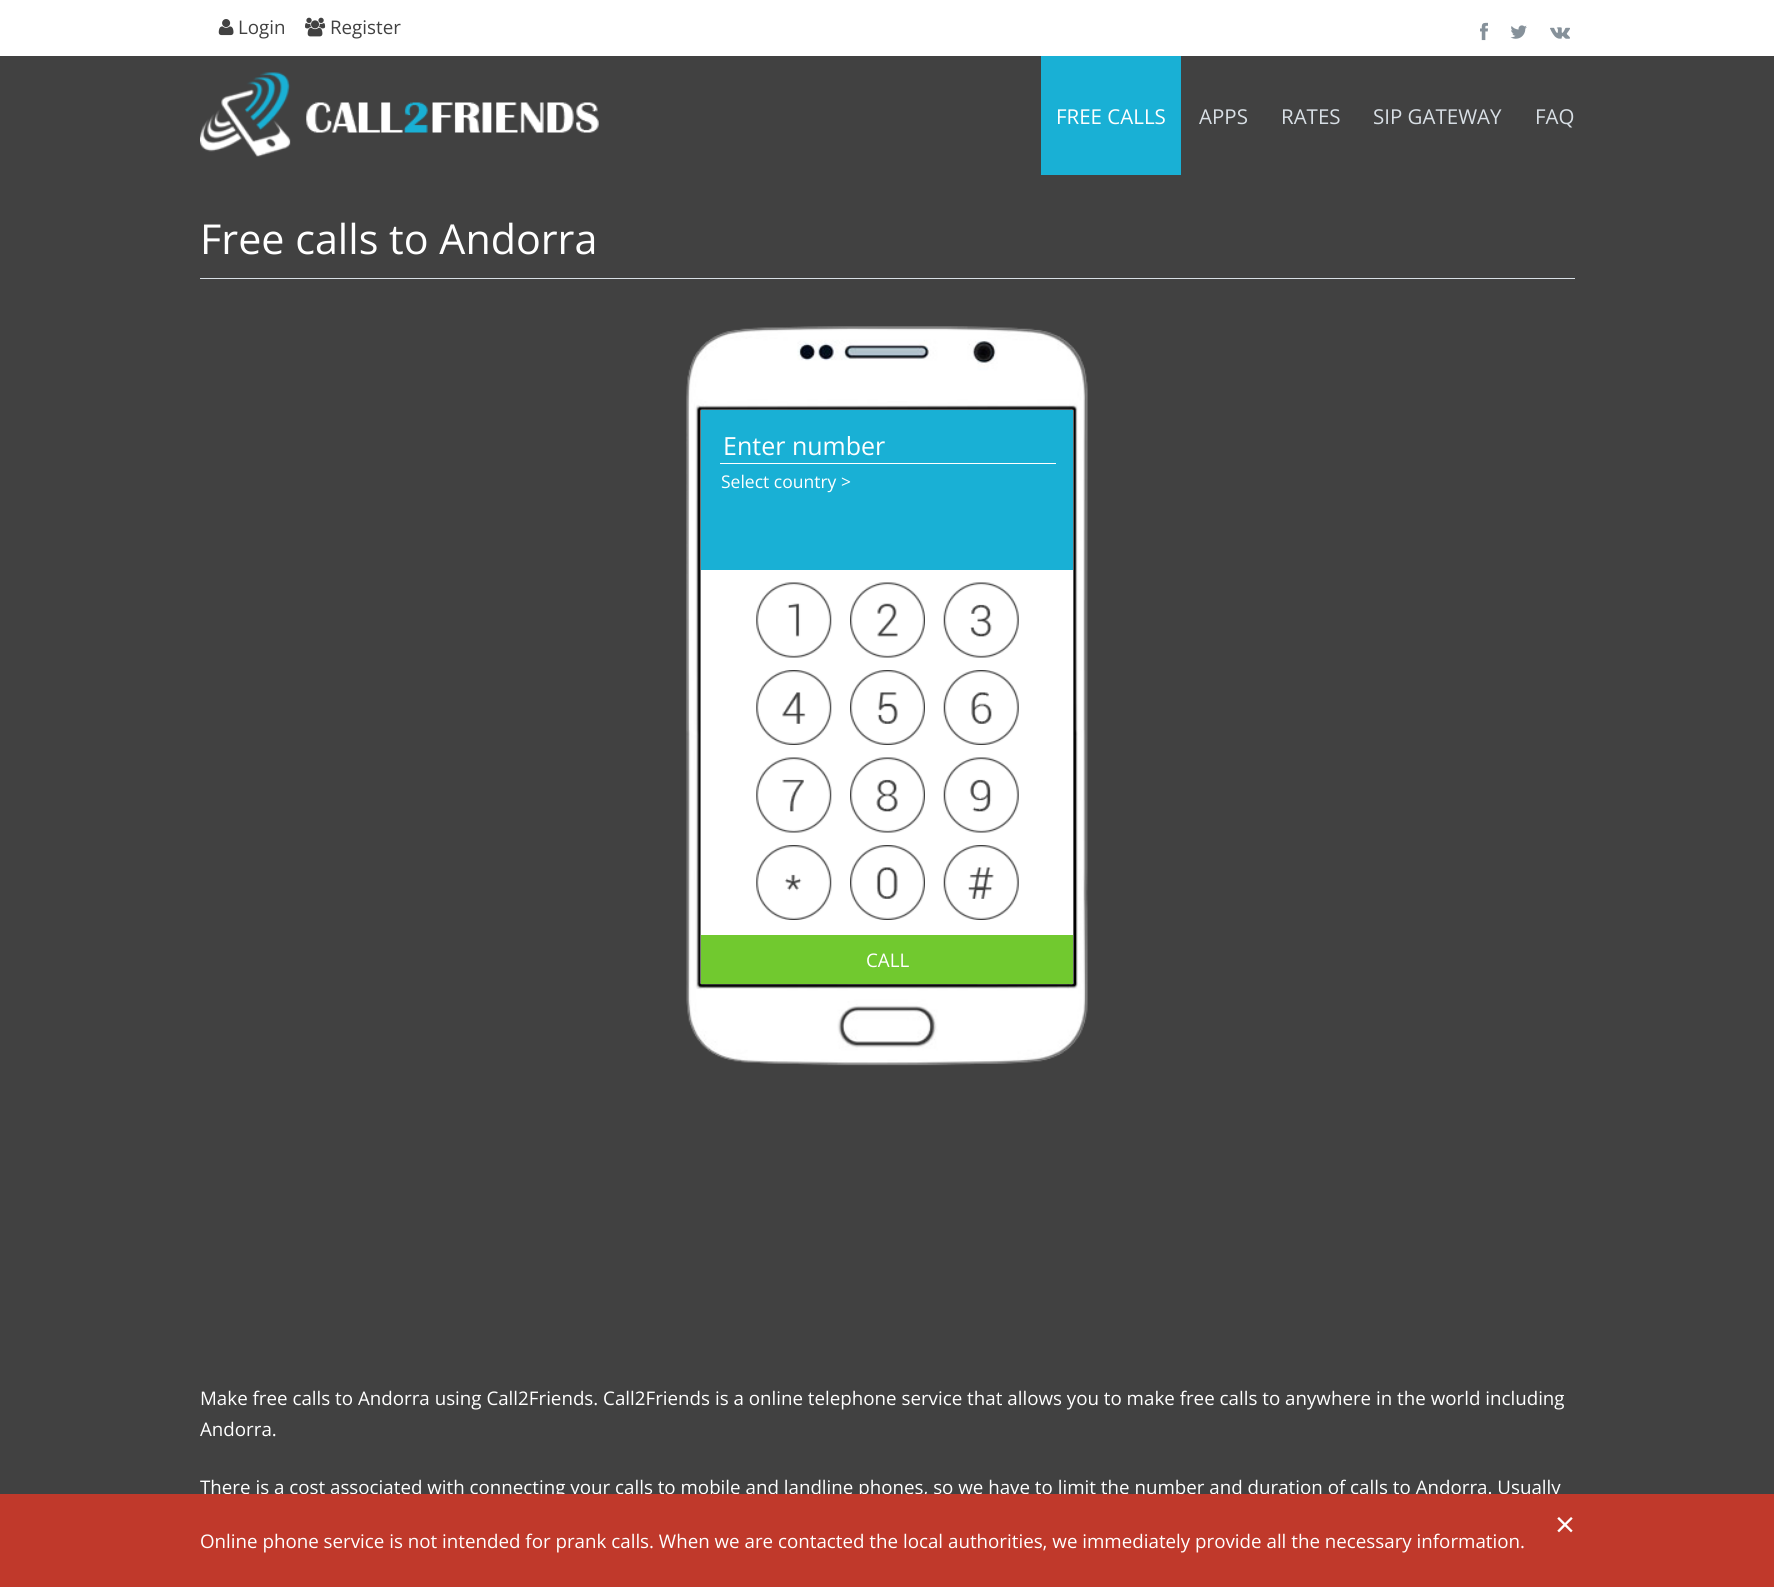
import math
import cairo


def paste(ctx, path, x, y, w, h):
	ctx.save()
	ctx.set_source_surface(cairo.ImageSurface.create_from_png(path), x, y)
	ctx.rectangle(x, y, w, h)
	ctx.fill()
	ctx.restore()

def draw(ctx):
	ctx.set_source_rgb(1, 1, 1)
	ctx.paint()
	paste(ctx, 'media/1.png', 218, 19, 16, 17)
	ctx.select_font_face('Open Sans')
	ctx.set_font_size(18.75)
	ctx.set_source_rgb(0.255, 0.255, 0.255)
	ctx.move_to(238, 34)
	ctx.show_text('Login')
	paste(ctx, 'media/2.png', 305, 17, 21, 20)
	ctx.move_to(330, 34)
	ctx.show_text('Register')
	paste(ctx, 'media/3.png', 1480, 22, 8, 19)
	paste(ctx, 'media/4.png', 1510, 25, 17, 14)
	paste(ctx, 'media/5.png', 1550, 27, 20, 12)
	ctx.rectangle(0, 56, 1774, 1438)
	ctx.fill()
	paste(ctx, 'media/6.png', 200, 72, 399, 85)
	ctx.set_source_rgb(0.098, 0.69, 0.835)
	ctx.rectangle(1041, 56, 140, 119)
	ctx.fill()
	ctx.set_font_size(20.5)
	ctx.set_source_rgb(1, 1, 1)
	ctx.move_to(1056, 124)
	ctx.show_text('FREE CALLS')
	ctx.set_source_rgb(0.847, 0.875, 0.898)
	for x, y, s in [
		(1199, 124, 'APPS'),
		(1281, 124, 'RATES'),
		(1373, 124, 'SIP GATEWAY'),
		(1535, 124, 'FAQ'),
	]:
		ctx.move_to(x, y)
		ctx.show_text(s)
	ctx.rectangle(200, 278, 1375, 1)
	ctx.fill()
	ctx.set_font_size(41.25)
	ctx.set_source_rgb(1, 1, 1)
	ctx.move_to(200, 254)
	ctx.show_text('Free calls to Andorra')
	paste(ctx, 'media/7.png', 686, 326, 402, 740)
	ctx.set_source_rgb(0.098, 0.69, 0.835)
	ctx.rectangle(701, 410, 372, 160)
	ctx.fill()
	ctx.set_source_rgb(1, 1, 1)
	ctx.rectangle(720, 463, 336, 1)
	ctx.fill()
	ctx.set_font_size(25)
	ctx.move_to(723, 455)
	ctx.show_text('Enter number')
	ctx.set_font_size(17.5)
	ctx.move_to(721, 488)
	ctx.show_text('Select country >')
	ctx.rectangle(701, 570, 372, 365)
	ctx.fill()
	paste(ctx, 'media/8.png', 756, 582, 76, 76)
	paste(ctx, 'media/9.png', 850, 582, 75, 76)
	paste(ctx, 'media/10.png', 943, 582, 76, 76)
	paste(ctx, 'media/11.png', 756, 670, 76, 75)
	paste(ctx, 'media/12.png', 850, 670, 75, 75)
	paste(ctx, 'media/13.png', 943, 670, 76, 75)
	paste(ctx, 'media/14.png', 756, 757, 76, 76)
	paste(ctx, 'media/15.png', 850, 757, 75, 76)
	paste(ctx, 'media/16.png', 943, 757, 76, 76)
	paste(ctx, 'media/17.png', 756, 845, 76, 75)
	paste(ctx, 'media/18.png', 850, 845, 75, 75)
	paste(ctx, 'media/19.png', 943, 845, 76, 75)
	ctx.set_source_rgb(0.443, 0.788, 0.184)
	ctx.rectangle(701, 935, 372, 49)
	ctx.fill()
	ctx.set_font_size(18.75)
	ctx.set_source_rgb(1, 1, 1)
	for x, y, s in [
		(866, 967, 'CALL'),
		(200, 1405, 'Make free calls to Andorra using Call2Friends. Call2Friends is a online telephone service that allows you to make free calls to anywhere in the world including'),
		(200, 1436, 'Andorra.'),
		(200, 1494, 'There is a cost associated with connecting your calls to mobile and landline phones, so we have to limit the number and duration of calls to Andorra. Usually'),
	]:
		ctx.move_to(x, y)
		ctx.show_text(s)
	ctx.set_source_rgb(0.753, 0.224, 0.169)
	ctx.rectangle(0, 1494, 1774, 93)
	ctx.fill()
	ctx.set_font_size(35)
	ctx.set_source_rgb(1, 1, 1)
	ctx.move_to(1555, 1537)
	ctx.show_text('×')
	ctx.set_font_size(18.75)
	ctx.move_to(200, 1548)
	ctx.show_text('Online phone service is not intended for prank calls. When we are contacted the local authorities, we immediately provide all the necessary information.')


surface = cairo.ImageSurface(cairo.FORMAT_RGB24, 1774, 1587)
ctx = cairo.Context(surface)
options = cairo.FontOptions()
options.set_hint_metrics(cairo.HINT_METRICS_OFF)
options.set_hint_style(cairo.HINT_STYLE_NONE)
ctx.set_font_options(options)
ctx.set_miter_limit(4)
draw(ctx)
surface.write_to_png('image.png')
